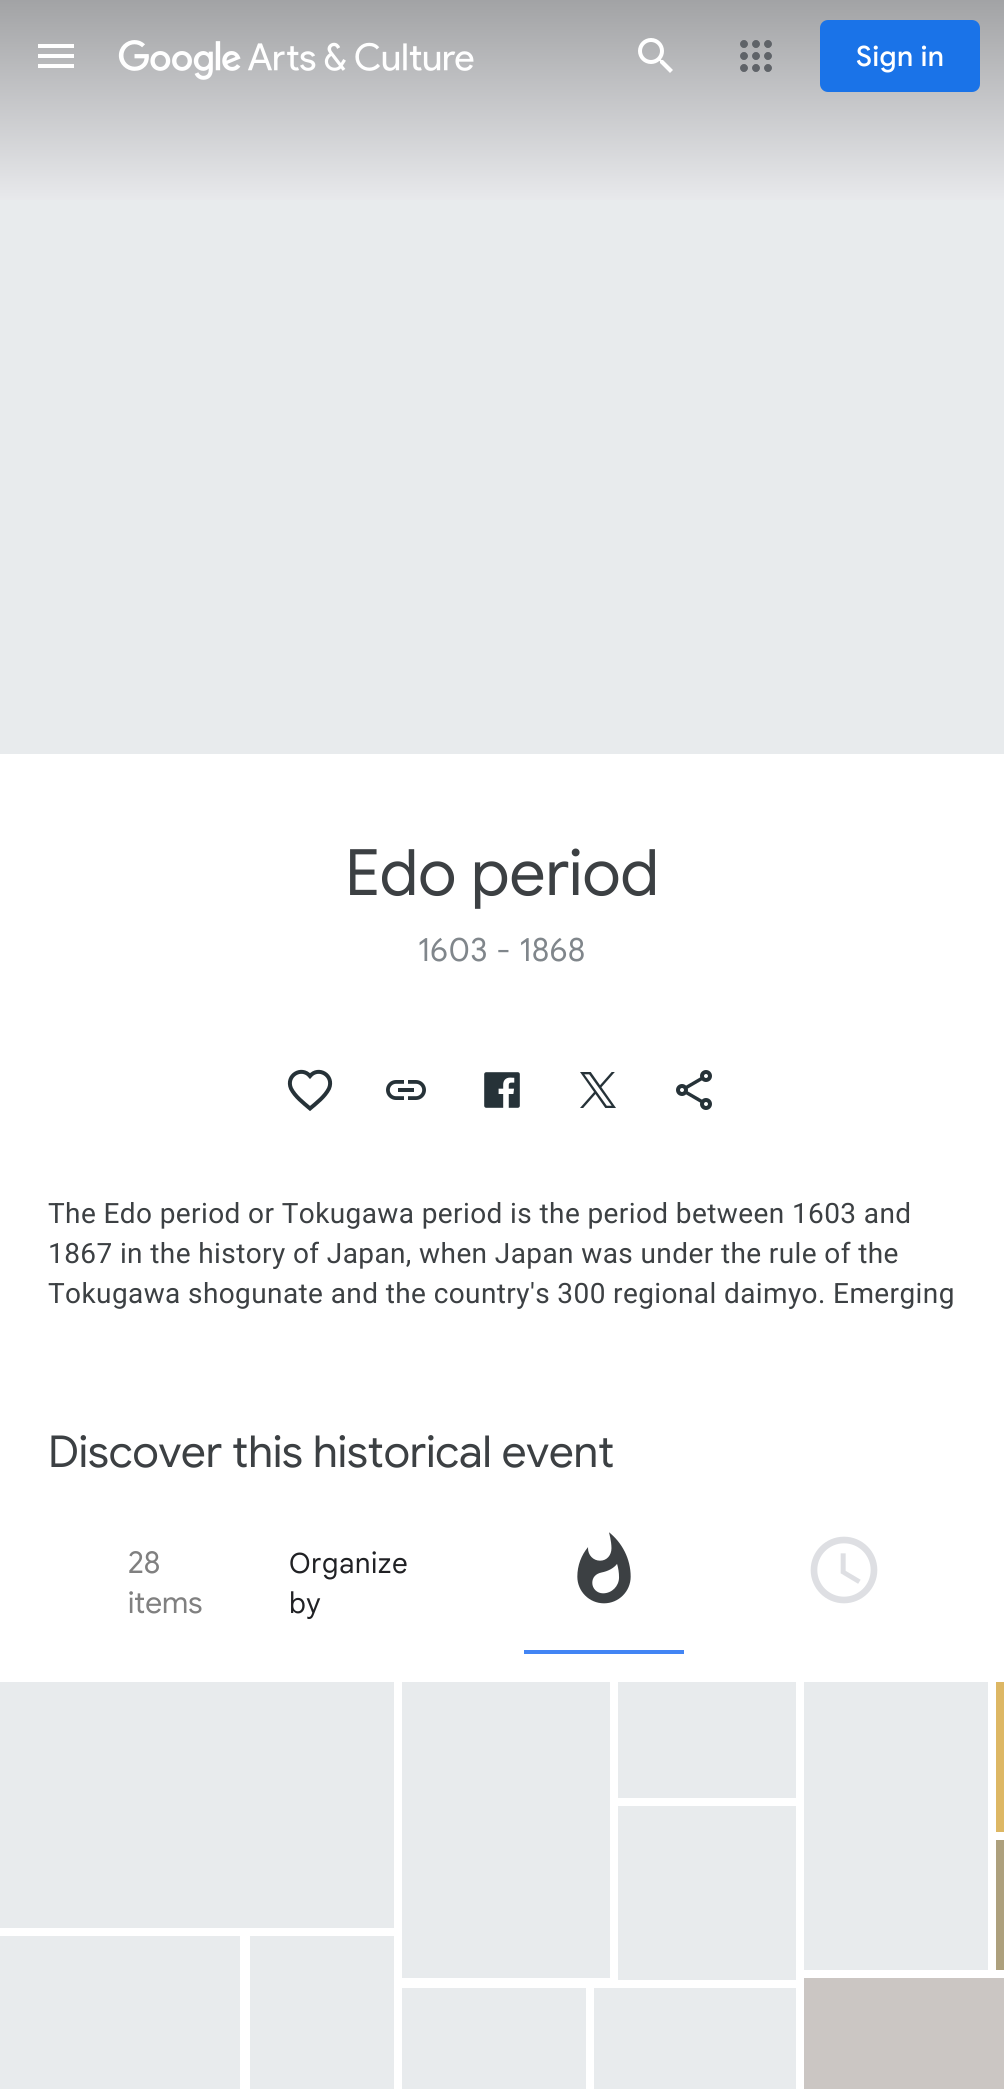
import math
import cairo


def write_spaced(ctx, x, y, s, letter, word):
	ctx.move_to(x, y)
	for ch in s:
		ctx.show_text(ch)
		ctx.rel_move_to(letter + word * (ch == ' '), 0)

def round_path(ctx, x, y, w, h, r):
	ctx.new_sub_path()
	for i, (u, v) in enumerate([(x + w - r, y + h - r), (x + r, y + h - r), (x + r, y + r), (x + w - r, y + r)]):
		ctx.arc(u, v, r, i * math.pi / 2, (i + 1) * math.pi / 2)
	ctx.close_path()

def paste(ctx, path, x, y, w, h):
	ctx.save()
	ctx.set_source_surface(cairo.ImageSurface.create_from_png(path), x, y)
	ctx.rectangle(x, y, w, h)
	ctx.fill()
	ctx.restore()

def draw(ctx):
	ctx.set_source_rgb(1, 1, 1)
	ctx.paint()
	gradient = cairo.LinearGradient(502, 0, 502, 200)
	gradient.add_color_stop_rgba(0, 0.635, 0.639, 0.647, 1)
	gradient.add_color_stop_rgba(1, 0.91, 0.914, 0.925, 1)
	ctx.set_source(gradient)
	ctx.rectangle(0, 0, 1004, 200)
	ctx.fill()
	ctx.set_source_rgb(1, 1, 1)
	ctx.new_path()
	ctx.move_to(38, 68)
	ctx.line_to(74, 68)
	ctx.line_to(74, 64)
	ctx.line_to(38, 64)
	ctx.close_path()
	ctx.move_to(38, 58)
	ctx.line_to(74, 58)
	ctx.line_to(74, 54)
	ctx.line_to(38, 54)
	ctx.close_path()
	ctx.move_to(38, 44)
	ctx.line_to(38, 48)
	ctx.line_to(74, 48)
	ctx.line_to(74, 44)
	ctx.close_path()
	ctx.fill()
	paste(ctx, 'media/1.png', 118, 40, 356, 40)
	paste(ctx, 'media/2.png', 638, 38, 35, 35)
	paste(ctx, 'media/3.png', 740, 40, 32, 32)
	ctx.set_source_rgb(0.102, 0.451, 0.91)
	round_path(ctx, 820, 20, 160, 72, 8)
	ctx.fill()
	ctx.select_font_face('Google Sans Medium')
	ctx.set_font_size(28)
	ctx.set_source_rgb(1, 1, 1)
	write_spaced(ctx, 856, 66, 'Sign in', 0.5, 0)
	ctx.set_source_rgb(0.91, 0.918, 0.929)
	ctx.rectangle(0, 200, 1004, 554)
	ctx.fill()
	ctx.select_font_face('Google Sans')
	ctx.set_font_size(64)
	ctx.set_source_rgb(0.235, 0.251, 0.263)
	ctx.move_to(345, 895)
	ctx.show_text('Edo period')
	ctx.select_font_face('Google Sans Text')
	ctx.set_font_size(32)
	ctx.set_source_rgb(0.502, 0.525, 0.545)
	write_spaced(ctx, 418, 961, '1603 - 1868', 0.25, 0)
	ctx.new_path()
	ctx.move_to(310, 1108.5)
	ctx.curve_to(303.5, 1103, 295, 1096.5, 291, 1088.5)
	ctx.curve_to(285.5, 1075.5, 301.5, 1066, 310, 1076)
	ctx.curve_to(318.5, 1066, 334.5, 1075.5, 329, 1088.5)
	ctx.curve_to(325, 1096.5, 316.5, 1103, 310, 1108.5)
	ctx.close_path()
	ctx.set_source_rgb(0.149, 0.196, 0.22)
	ctx.set_line_width(4)
	ctx.stroke()
	paste(ctx, 'media/4.png', 386, 1080, 40, 20)
	paste(ctx, 'media/5.png', 484, 1072, 36, 36)
	paste(ctx, 'media/6.png', 580, 1072, 36, 36)
	paste(ctx, 'media/7.png', 676, 1070, 36, 40)
	ctx.select_font_face('Roboto')
	ctx.set_font_size(28)
	ctx.set_source_rgb(0.235, 0.251, 0.263)
	for x, y, s in [
		(48, 1223, 'The Edo period or Tokugawa period is the period between 1603 and'),
		(48, 1263, '1867 in the history of Japan, when Japan was under the rule of the'),
		(48, 1303, 'Tokugawa shogunate and the country\'s 300 regional daimyo. Emerging'),
	]:
		write_spaced(ctx, x, y, s, 0.4, 0)
	ctx.select_font_face('Google Sans')
	ctx.set_font_size(44)
	ctx.move_to(48, 1467)
	ctx.show_text('Discover this historical event')
	ctx.set_font_size(30)
	ctx.set_source_rgb(0.502, 0.502, 0.502)
	ctx.move_to(128, 1573)
	ctx.show_text('28')
	ctx.move_to(128, 1613)
	ctx.show_text('items')
	ctx.select_font_face('Google Sans Text')
	ctx.set_font_size(28)
	ctx.set_source_rgb(0.125, 0.129, 0.141)
	write_spaced(ctx, 289, 1573, 'Organize', 0.4, 0)
	write_spaced(ctx, 289, 1613, 'by', 0.4, 0)
	paste(ctx, 'media/8.png', 577, 1532, 54, 72)
	ctx.set_source_rgb(0.259, 0.522, 0.957)
	ctx.rectangle(524, 1650, 160, 4)
	ctx.fill()
	paste(ctx, 'media/9.png', 810, 1536, 68, 68)
	ctx.set_source_rgb(0.91, 0.918, 0.929)
	ctx.rectangle(0, 1682, 394, 246)
	ctx.rectangle(0, 1936, 240, 153)
	ctx.rectangle(250, 1936, 144, 153)
	ctx.rectangle(402, 1682, 208, 296)
	ctx.rectangle(618, 1682, 178, 116)
	ctx.rectangle(618, 1806, 178, 174)
	ctx.rectangle(402, 1988, 184, 101)
	ctx.rectangle(594, 1988, 202, 101)
	ctx.rectangle(804, 1682, 184, 288)
	ctx.fill()
	ctx.set_source_rgb(0.867, 0.718, 0.392)
	ctx.rectangle(996, 1682, 8, 150)
	ctx.fill()
	ctx.set_source_rgb(0.678, 0.627, 0.49)
	ctx.rectangle(996, 1840, 8, 130)
	ctx.fill()
	ctx.set_source_rgb(0.796, 0.776, 0.765)
	ctx.rectangle(804, 1978, 200, 111)
	ctx.fill()


surface = cairo.ImageSurface(cairo.FORMAT_RGB24, 1004, 2089)
ctx = cairo.Context(surface)
options = cairo.FontOptions()
options.set_hint_metrics(cairo.HINT_METRICS_OFF)
options.set_hint_style(cairo.HINT_STYLE_NONE)
ctx.set_font_options(options)
ctx.set_miter_limit(4)
draw(ctx)
surface.write_to_png('image.png')
